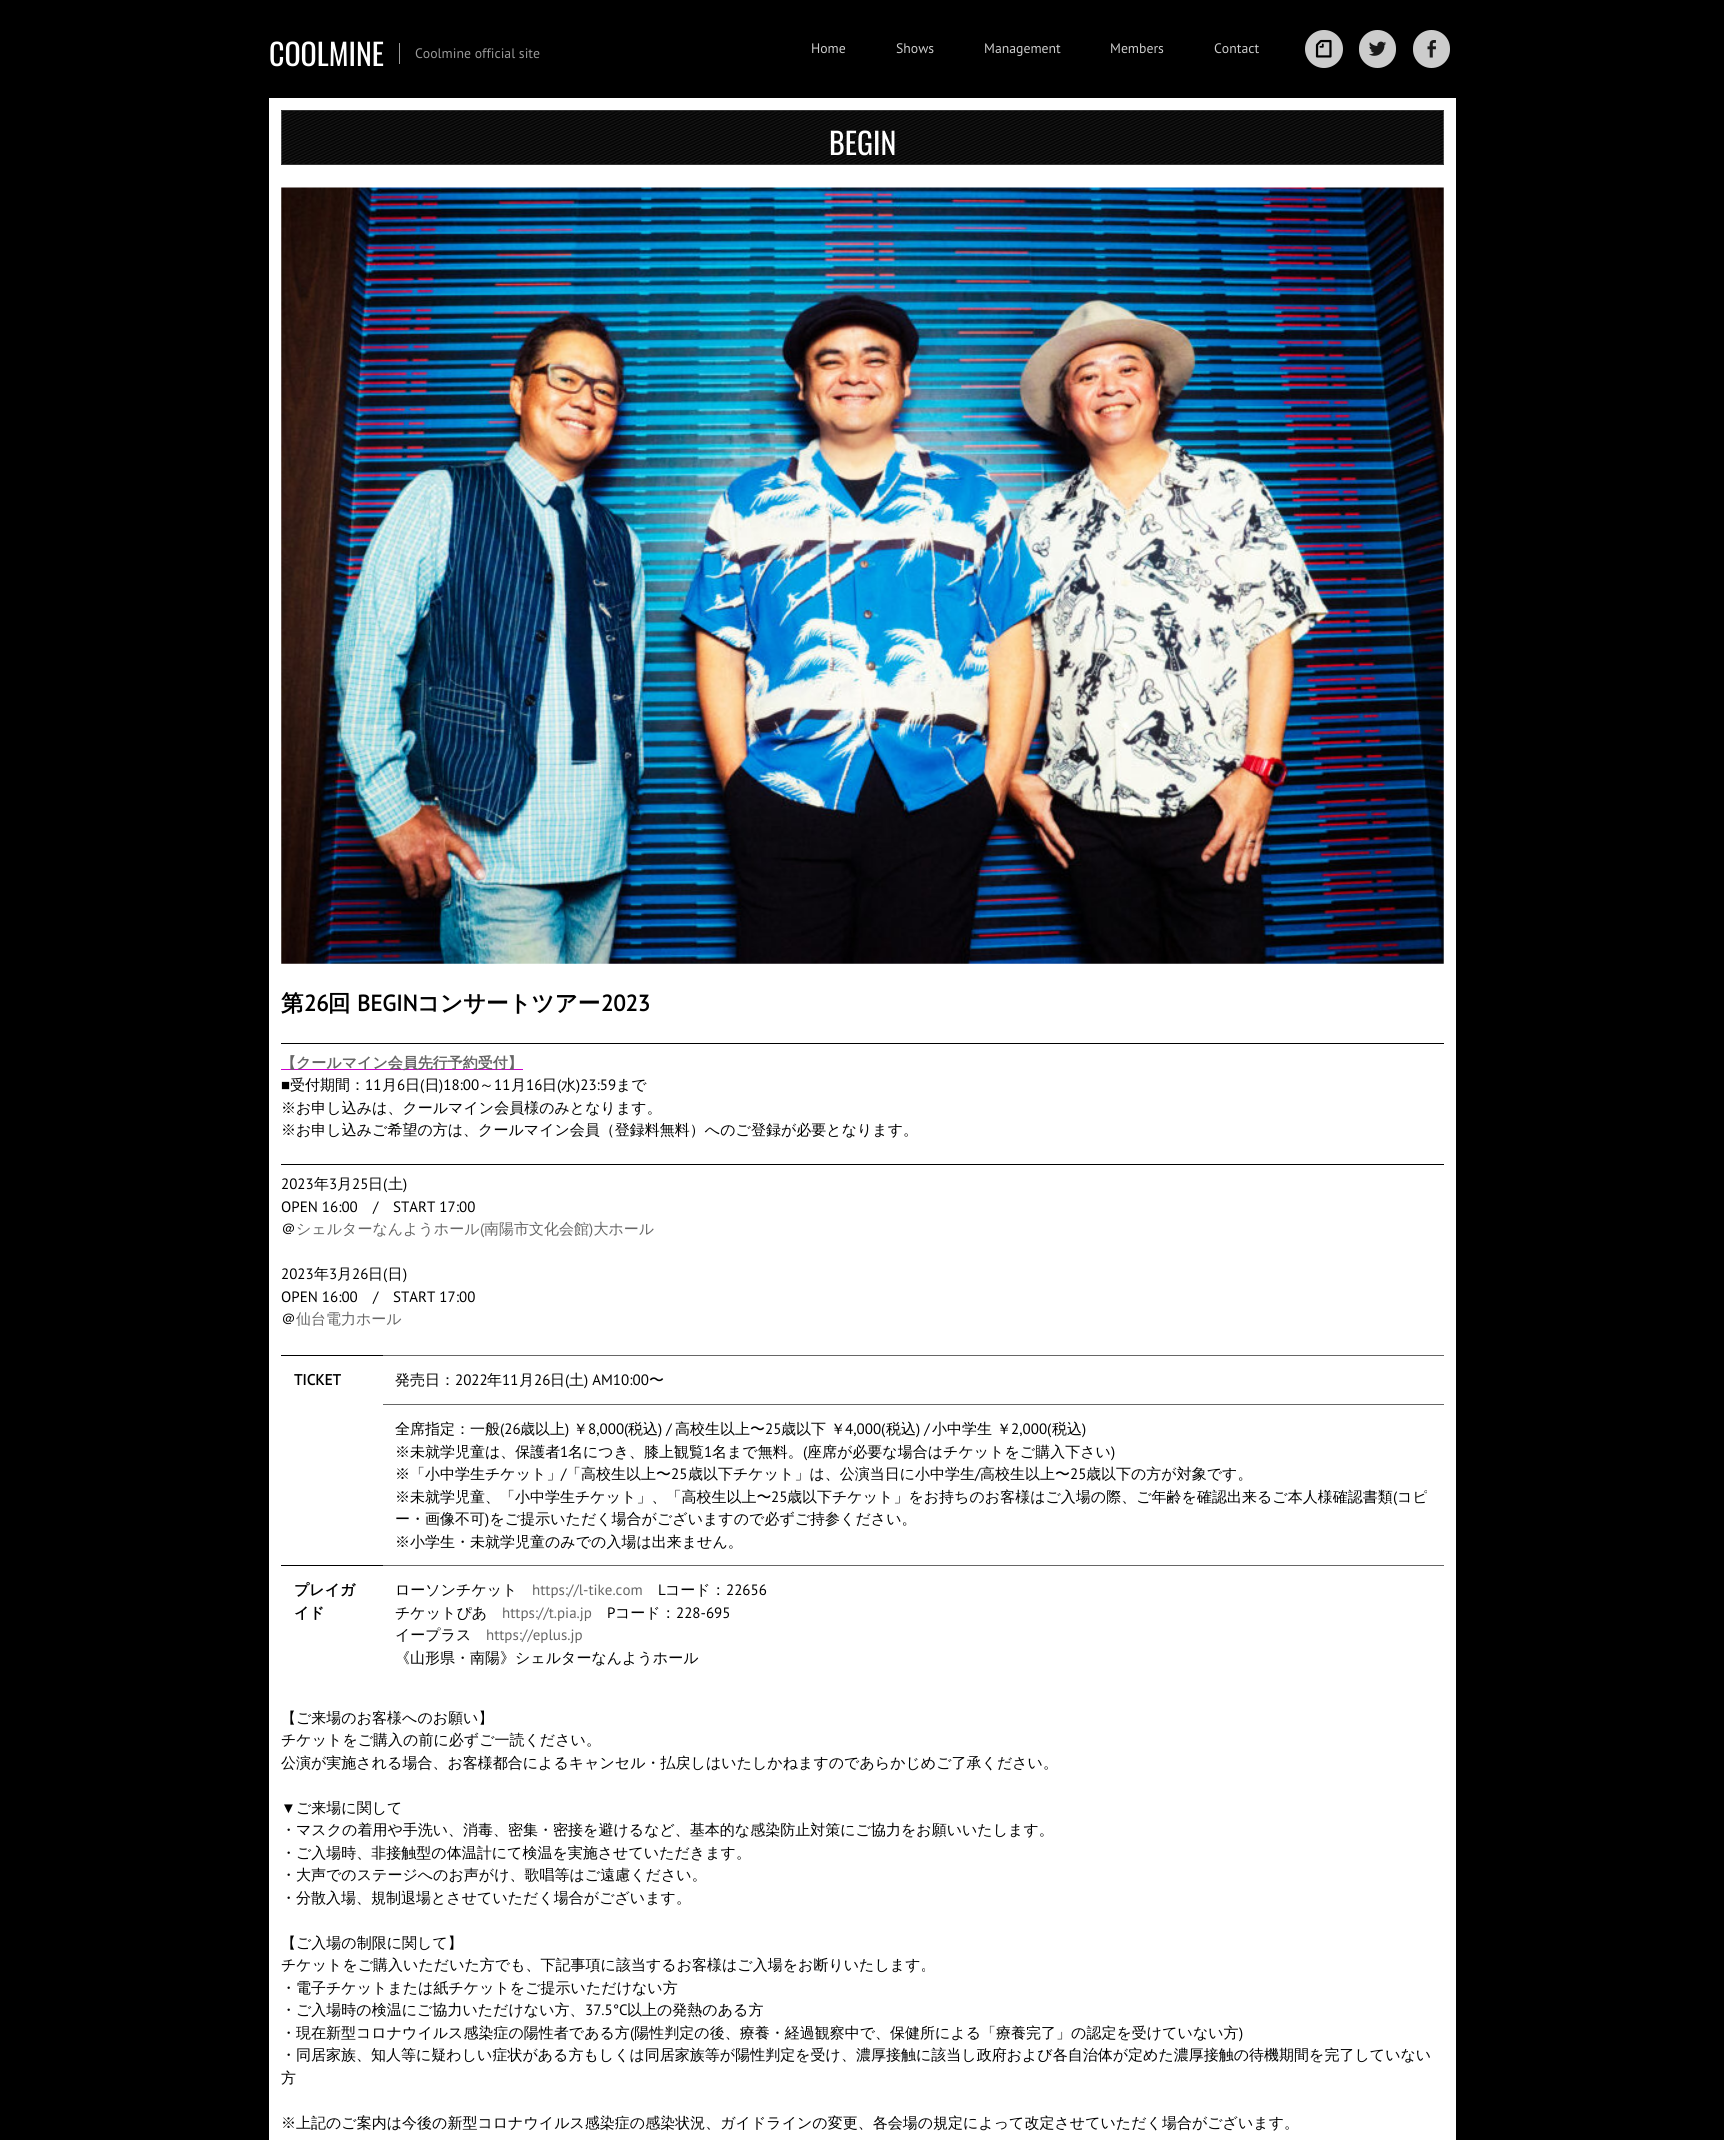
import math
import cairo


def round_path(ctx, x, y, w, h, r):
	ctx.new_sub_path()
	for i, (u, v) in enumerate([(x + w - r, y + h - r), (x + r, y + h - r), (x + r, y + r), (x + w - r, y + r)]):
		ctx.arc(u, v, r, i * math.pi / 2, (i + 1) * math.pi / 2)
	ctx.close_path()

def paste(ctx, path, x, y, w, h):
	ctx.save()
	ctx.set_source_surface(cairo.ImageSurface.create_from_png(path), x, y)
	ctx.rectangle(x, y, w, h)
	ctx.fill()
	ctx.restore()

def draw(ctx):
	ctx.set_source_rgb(0, 0, 0)
	ctx.paint()
	ctx.select_font_face('Oswald')
	ctx.set_font_size(30)
	ctx.set_source_rgb(1, 1, 1)
	ctx.move_to(269, 66)
	ctx.show_text('COOLMINE')
	ctx.set_source_rgb(0.6, 0.6, 0.6)
	ctx.rectangle(399, 43, 1, 21)
	ctx.fill()
	ctx.select_font_face('PT Sans')
	ctx.set_font_size(13.75)
	ctx.move_to(415, 58)
	ctx.show_text('Coolmine official site')
	ctx.set_source_rgb(0.8, 0.8, 0.8)
	for x, y, s in [
		(811, 53, 'Home'),
		(896, 53, 'Shows'),
		(984, 53, 'Management'),
		(1110, 53, 'Members'),
		(1214, 53, 'Contact'),
	]:
		ctx.move_to(x, y)
		ctx.show_text(s)
	ctx.new_path()
	ctx.arc(1324, 49, 19, 0, 2 * math.pi)
	ctx.fill()
	paste(ctx, 'media/1.png', 1315, 39, 17, 19)
	round_path(ctx, 1359, 30, 37, 38, 18.5)
	ctx.fill()
	paste(ctx, 'media/2.png', 1369, 41, 18, 15)
	round_path(ctx, 1413, 30, 37, 38, 18.5)
	ctx.fill()
	paste(ctx, 'media/3.png', 1427, 40, 9, 18)
	ctx.set_source_rgb(1, 1, 1)
	ctx.rectangle(269, 98, 1187, 2042)
	ctx.fill()
	paste(ctx, 'media/4.png', 281, 111, 1163, 53)
	ctx.set_source_rgb(0.2, 0.2, 0.2)
	ctx.rectangle(281, 110, 1163, 1)
	ctx.fill()
	ctx.rectangle(281, 164, 1163, 1)
	ctx.fill()
	ctx.select_font_face('Oswald')
	ctx.set_font_size(30)
	ctx.set_source_rgb(1, 1, 1)
	ctx.move_to(829, 155)
	ctx.show_text('BEGIN')
	paste(ctx, 'media/5.png', 281, 187, 1163, 777)
	ctx.select_font_face('WenQuanYi Zen Hei', cairo.FONT_SLANT_NORMAL, cairo.FONT_WEIGHT_BOLD)
	ctx.set_font_size(22.5)
	ctx.set_source_rgb(0, 0, 0)
	ctx.move_to(281, 1011)
	ctx.show_text('第')
	ctx.select_font_face('PT Sans', cairo.FONT_SLANT_NORMAL, cairo.FONT_WEIGHT_BOLD)
	ctx.move_to(304, 1011)
	ctx.show_text('26')
	ctx.select_font_face('WenQuanYi Zen Hei', cairo.FONT_SLANT_NORMAL, cairo.FONT_WEIGHT_BOLD)
	ctx.move_to(328, 1011)
	ctx.show_text('回')
	ctx.select_font_face('PT Sans', cairo.FONT_SLANT_NORMAL, cairo.FONT_WEIGHT_BOLD)
	ctx.move_to(357, 1011)
	ctx.show_text('BEGIN')
	ctx.select_font_face('WenQuanYi Zen Hei', cairo.FONT_SLANT_NORMAL, cairo.FONT_WEIGHT_BOLD)
	ctx.move_to(417, 1011)
	ctx.show_text('コンサートツアー')
	ctx.select_font_face('PT Sans', cairo.FONT_SLANT_NORMAL, cairo.FONT_WEIGHT_BOLD)
	ctx.move_to(601, 1011)
	ctx.show_text('2023')
	ctx.rectangle(281, 1043, 1163, 1)
	ctx.fill()
	ctx.set_source_rgb(0.8, 0, 0.8)
	ctx.rectangle(281, 1069, 242, 1)
	ctx.fill()
	ctx.select_font_face('WenQuanYi Zen Hei', cairo.FONT_SLANT_NORMAL, cairo.FONT_WEIGHT_BOLD)
	ctx.set_font_size(15)
	ctx.set_source_rgb(0.4, 0.4, 0.4)
	ctx.move_to(281, 1068)
	ctx.show_text('【クールマイン会員先行予約受付】')
	ctx.select_font_face('WenQuanYi Zen Hei Medium')
	ctx.set_source_rgb(0, 0, 0)
	ctx.move_to(290, 1090)
	ctx.show_text('受付期間：')
	ctx.select_font_face('PT Sans')
	ctx.move_to(365, 1090)
	ctx.show_text('11')
	ctx.select_font_face('WenQuanYi Zen Hei Medium')
	ctx.move_to(382, 1090)
	ctx.show_text('月')
	ctx.select_font_face('PT Sans')
	ctx.move_to(397, 1090)
	ctx.show_text('6')
	ctx.select_font_face('WenQuanYi Zen Hei Medium')
	for x, y, s in [
		(405, 1090, '日 日'),
		(511, 1090, '月'),
		(542, 1090, '日'),
	]:
		ctx.move_to(x, y)
		ctx.show_text(s)
	ctx.select_font_face('PT Sans')
	ctx.move_to(557, 1090)
	ctx.show_text('(')
	ctx.select_font_face('WenQuanYi Zen Hei Medium')
	ctx.move_to(561, 1090)
	ctx.show_text('水')
	ctx.move_to(616, 1090)
	ctx.show_text('まで')
	ctx.select_font_face('Liberation Serif')
	ctx.move_to(281, 1090)
	ctx.show_text('■')
	ctx.select_font_face('PT Sans')
	ctx.move_to(420, 1090)
	ctx.show_text('(')
	ctx.move_to(439, 1090)
	ctx.show_text(')18:00')
	ctx.select_font_face('WenQuanYi Zen Hei Medium')
	ctx.move_to(479, 1090)
	ctx.show_text('～')
	ctx.select_font_face('PT Sans')
	for x, y, s in [
		(494, 1090, '11'),
		(526, 1090, '16'),
		(576, 1090, ')23:59'),
	]:
		ctx.move_to(x, y)
		ctx.show_text(s)
	ctx.select_font_face('WenQuanYi Zen Hei Medium')
	ctx.move_to(281, 1113)
	ctx.show_text('※お申し込みは、クールマイン会員様のみとなります。')
	ctx.move_to(281, 1135)
	ctx.show_text('※お申し込みご希望の方は、クールマイン会員（登録料無料）へのご登録が必要となります。')
	ctx.rectangle(281, 1164, 1163, 1)
	ctx.fill()
	ctx.select_font_face('PT Sans')
	ctx.move_to(281, 1189)
	ctx.show_text('2023')
	ctx.select_font_face('WenQuanYi Zen Hei Medium')
	ctx.move_to(314, 1189)
	ctx.show_text('年')
	ctx.select_font_face('PT Sans')
	ctx.move_to(329, 1189)
	ctx.show_text('3')
	ctx.select_font_face('WenQuanYi Zen Hei Medium')
	ctx.move_to(337, 1189)
	ctx.show_text('月')
	ctx.select_font_face('PT Sans')
	ctx.move_to(352, 1189)
	ctx.show_text('25')
	ctx.select_font_face('WenQuanYi Zen Hei Medium')
	ctx.move_to(368, 1189)
	ctx.show_text('日')
	ctx.select_font_face('PT Sans')
	ctx.move_to(383, 1189)
	ctx.show_text('(')
	ctx.select_font_face('WenQuanYi Zen Hei Medium')
	ctx.move_to(388, 1189)
	ctx.show_text('土')
	ctx.select_font_face('PT Sans')
	for x, y, s in [
		(403, 1189, ')'),
		(281, 1212, 'OPEN 16:00'),
		(373, 1212, '/'),
		(393, 1212, 'START 17:00'),
	]:
		ctx.move_to(x, y)
		ctx.show_text(s)
	ctx.select_font_face('WenQuanYi Zen Hei Medium')
	ctx.move_to(281, 1234)
	ctx.show_text('＠')
	ctx.set_source_rgb(0.4, 0.4, 0.4)
	ctx.move_to(296, 1234)
	ctx.show_text('シェルターなんようホール 南陽市文化会館 大ホール')
	ctx.select_font_face('PT Sans')
	ctx.move_to(480, 1234)
	ctx.show_text('(')
	ctx.move_to(589, 1234)
	ctx.show_text(')')
	ctx.set_source_rgb(0, 0, 0)
	ctx.move_to(281, 1279)
	ctx.show_text('2023')
	ctx.select_font_face('WenQuanYi Zen Hei Medium')
	ctx.move_to(314, 1279)
	ctx.show_text('年')
	ctx.select_font_face('PT Sans')
	ctx.move_to(329, 1279)
	ctx.show_text('3')
	ctx.select_font_face('WenQuanYi Zen Hei Medium')
	ctx.move_to(337, 1279)
	ctx.show_text('月')
	ctx.select_font_face('PT Sans')
	ctx.move_to(352, 1279)
	ctx.show_text('26')
	ctx.select_font_face('WenQuanYi Zen Hei Medium')
	ctx.move_to(368, 1279)
	ctx.show_text('日 日')
	ctx.select_font_face('PT Sans')
	for x, y, s in [
		(383, 1279, '('),
		(403, 1279, ')'),
		(281, 1302, 'OPEN 16:00'),
		(373, 1302, '/'),
		(393, 1302, 'START 17:00'),
	]:
		ctx.move_to(x, y)
		ctx.show_text(s)
	ctx.select_font_face('WenQuanYi Zen Hei Medium')
	ctx.move_to(281, 1324)
	ctx.show_text('＠')
	ctx.set_source_rgb(0.4, 0.4, 0.4)
	ctx.move_to(296, 1324)
	ctx.show_text('仙台電力ホール')
	ctx.set_source_rgb(0, 0, 0)
	ctx.rectangle(281, 1355, 102, 1)
	ctx.fill()
	ctx.select_font_face('PT Sans', cairo.FONT_SLANT_NORMAL, cairo.FONT_WEIGHT_BOLD)
	ctx.move_to(294, 1385)
	ctx.show_text('TICKET')
	ctx.set_source_rgb(0.4, 0.4, 0.4)
	ctx.rectangle(383, 1355, 1061, 1)
	ctx.fill()
	ctx.select_font_face('WenQuanYi Zen Hei Medium')
	ctx.set_source_rgb(0, 0, 0)
	ctx.move_to(395, 1385)
	ctx.show_text('発売日：')
	ctx.select_font_face('PT Sans')
	ctx.move_to(455, 1385)
	ctx.show_text('2022')
	ctx.select_font_face('WenQuanYi Zen Hei Medium')
	ctx.move_to(487, 1385)
	ctx.show_text('年')
	ctx.select_font_face('PT Sans')
	ctx.move_to(502, 1385)
	ctx.show_text('11')
	ctx.select_font_face('WenQuanYi Zen Hei Medium')
	ctx.move_to(519, 1385)
	ctx.show_text('月')
	ctx.select_font_face('PT Sans')
	ctx.move_to(534, 1385)
	ctx.show_text('26')
	ctx.select_font_face('WenQuanYi Zen Hei Medium')
	ctx.move_to(550, 1385)
	ctx.show_text('日')
	ctx.select_font_face('PT Sans')
	ctx.move_to(565, 1385)
	ctx.show_text('(')
	ctx.select_font_face('WenQuanYi Zen Hei Medium')
	ctx.move_to(569, 1385)
	ctx.show_text('土')
	ctx.select_font_face('PT Sans')
	ctx.move_to(584, 1385)
	ctx.show_text(') AM10:00')
	ctx.select_font_face('WenQuanYi Zen Hei Medium')
	ctx.move_to(649, 1385)
	ctx.show_text('〜')
	ctx.set_source_rgb(0.4, 0.4, 0.4)
	ctx.rectangle(383, 1404, 1061, 1)
	ctx.fill()
	ctx.set_source_rgb(0, 0, 0)
	ctx.move_to(395, 1434)
	ctx.show_text('全席指定：一般')
	ctx.select_font_face('PT Sans')
	ctx.move_to(500, 1434)
	ctx.show_text('(26')
	ctx.select_font_face('WenQuanYi Zen Hei Medium')
	ctx.move_to(520, 1434)
	ctx.show_text('歳以上')
	ctx.select_font_face('PT Sans')
	ctx.move_to(565, 1434)
	ctx.show_text(')')
	ctx.select_font_face('WenQuanYi Zen Hei Medium')
	ctx.move_to(573, 1434)
	ctx.show_text('￥')
	ctx.select_font_face('PT Sans')
	ctx.move_to(588, 1434)
	ctx.show_text('8,000(')
	ctx.select_font_face('WenQuanYi Zen Hei Medium')
	ctx.move_to(628, 1434)
	ctx.show_text('税込')
	ctx.select_font_face('PT Sans')
	ctx.move_to(658, 1434)
	ctx.show_text(') /')
	ctx.select_font_face('WenQuanYi Zen Hei Medium')
	ctx.move_to(675, 1434)
	ctx.show_text('高校生以上〜')
	ctx.select_font_face('PT Sans')
	ctx.move_to(765, 1434)
	ctx.show_text('25')
	ctx.select_font_face('WenQuanYi Zen Hei Medium')
	ctx.move_to(781, 1434)
	ctx.show_text('歳以下 ￥')
	ctx.select_font_face('PT Sans')
	ctx.move_to(845, 1434)
	ctx.show_text('4,000(')
	ctx.select_font_face('WenQuanYi Zen Hei Medium')
	ctx.move_to(886, 1434)
	ctx.show_text('税込')
	ctx.select_font_face('PT Sans')
	ctx.move_to(916, 1434)
	ctx.show_text(') /')
	ctx.select_font_face('WenQuanYi Zen Hei Medium')
	ctx.move_to(932, 1434)
	ctx.show_text('小中学生 ￥')
	ctx.select_font_face('PT Sans')
	ctx.move_to(1011, 1434)
	ctx.show_text('2,000(')
	ctx.select_font_face('WenQuanYi Zen Hei Medium')
	ctx.move_to(1052, 1434)
	ctx.show_text('税込')
	ctx.select_font_face('PT Sans')
	ctx.move_to(1082, 1434)
	ctx.show_text(')')
	ctx.select_font_face('WenQuanYi Zen Hei Medium')
	ctx.move_to(395, 1457)
	ctx.show_text('※未就学児童は、保護者')
	ctx.select_font_face('PT Sans')
	ctx.move_to(560, 1457)
	ctx.show_text('1')
	ctx.select_font_face('WenQuanYi Zen Hei Medium')
	ctx.move_to(568, 1457)
	ctx.show_text('名につき、膝上観覧')
	ctx.select_font_face('PT Sans')
	ctx.move_to(704, 1457)
	ctx.show_text('1')
	ctx.select_font_face('WenQuanYi Zen Hei Medium')
	ctx.move_to(712, 1457)
	ctx.show_text('名まで無料。')
	ctx.select_font_face('PT Sans')
	ctx.move_to(803, 1457)
	ctx.show_text('(')
	ctx.select_font_face('WenQuanYi Zen Hei Medium')
	ctx.move_to(807, 1457)
	ctx.show_text('座席が必要な場合はチケットをご購入下さい')
	ctx.select_font_face('PT Sans')
	ctx.move_to(1111, 1457)
	ctx.show_text(')')
	ctx.select_font_face('WenQuanYi Zen Hei Medium')
	ctx.move_to(395, 1479)
	ctx.show_text('※「小中学生チケット」')
	ctx.select_font_face('PT Sans')
	ctx.move_to(561, 1479)
	ctx.show_text('/')
	ctx.select_font_face('WenQuanYi Zen Hei Medium')
	ctx.move_to(566, 1479)
	ctx.show_text('「高校生以上〜')
	ctx.select_font_face('PT Sans')
	ctx.move_to(671, 1479)
	ctx.show_text('25')
	ctx.select_font_face('WenQuanYi Zen Hei Medium')
	ctx.move_to(688, 1479)
	ctx.show_text('歳以下チケット」は、公演当日に小中学生')
	ctx.select_font_face('PT Sans')
	ctx.move_to(975, 1479)
	ctx.show_text('/')
	ctx.select_font_face('WenQuanYi Zen Hei Medium')
	ctx.move_to(980, 1479)
	ctx.show_text('高校生以上〜')
	ctx.select_font_face('PT Sans')
	ctx.move_to(1070, 1479)
	ctx.show_text('25')
	ctx.select_font_face('WenQuanYi Zen Hei Medium')
	ctx.move_to(1086, 1479)
	ctx.show_text('歳以下の方が対象です。')
	ctx.move_to(395, 1502)
	ctx.show_text('※未就学児童、「小中学生チケット」、「高校生以上〜')
	ctx.select_font_face('PT Sans')
	ctx.move_to(771, 1502)
	ctx.show_text('25')
	ctx.select_font_face('WenQuanYi Zen Hei Medium')
	ctx.move_to(787, 1502)
	ctx.show_text('歳以下チケット」をお持ちのお客様はご入場の際、ご年齢を確認出来るご本人様確認書類 コピ')
	ctx.select_font_face('PT Sans')
	ctx.move_to(1393, 1502)
	ctx.show_text('(')
	ctx.select_font_face('WenQuanYi Zen Hei Medium')
	ctx.move_to(395, 1524)
	ctx.show_text('ー・画像不可 をご提示いただく場合がございますので必ずご持参ください。')
	ctx.select_font_face('PT Sans')
	ctx.move_to(485, 1524)
	ctx.show_text(')')
	ctx.select_font_face('WenQuanYi Zen Hei Medium')
	ctx.move_to(395, 1547)
	ctx.show_text('※小学生・未就学児童のみでの入場は出来ません。')
	ctx.rectangle(281, 1565, 102, 1)
	ctx.fill()
	ctx.select_font_face('WenQuanYi Zen Hei', cairo.FONT_SLANT_NORMAL, cairo.FONT_WEIGHT_BOLD)
	ctx.move_to(294, 1595)
	ctx.show_text('プレイガ')
	ctx.move_to(294, 1618)
	ctx.show_text('イド')
	ctx.set_source_rgb(0.4, 0.4, 0.4)
	ctx.rectangle(383, 1565, 1061, 1)
	ctx.fill()
	ctx.select_font_face('WenQuanYi Zen Hei Medium')
	ctx.set_source_rgb(0, 0, 0)
	ctx.move_to(395, 1595)
	ctx.show_text('ローソンチケット')
	ctx.select_font_face('PT Sans')
	ctx.set_source_rgb(0.4, 0.4, 0.4)
	ctx.move_to(532, 1595)
	ctx.show_text('https://l-tike.com')
	ctx.set_source_rgb(0, 0, 0)
	ctx.move_to(658, 1595)
	ctx.show_text('L')
	ctx.select_font_face('WenQuanYi Zen Hei Medium')
	ctx.move_to(665, 1595)
	ctx.show_text('コード：')
	ctx.select_font_face('PT Sans')
	ctx.move_to(726, 1595)
	ctx.show_text('22656')
	ctx.select_font_face('WenQuanYi Zen Hei Medium')
	ctx.move_to(395, 1618)
	ctx.show_text('チケットぴあ')
	ctx.select_font_face('PT Sans')
	ctx.set_source_rgb(0.4, 0.4, 0.4)
	ctx.move_to(502, 1618)
	ctx.show_text('https://t.pia.jp')
	ctx.set_source_rgb(0, 0, 0)
	ctx.move_to(607, 1618)
	ctx.show_text('P')
	ctx.select_font_face('WenQuanYi Zen Hei Medium')
	ctx.move_to(615, 1618)
	ctx.show_text('コード：')
	ctx.select_font_face('PT Sans')
	ctx.move_to(676, 1618)
	ctx.show_text('228-695')
	ctx.select_font_face('WenQuanYi Zen Hei Medium')
	ctx.move_to(395, 1640)
	ctx.show_text('イープラス')
	ctx.select_font_face('PT Sans')
	ctx.set_source_rgb(0.4, 0.4, 0.4)
	ctx.move_to(486, 1640)
	ctx.show_text('https://eplus.jp')
	ctx.select_font_face('WenQuanYi Zen Hei Medium')
	ctx.set_source_rgb(0, 0, 0)
	for x, y, s in [
		(395, 1663, '《山形県・南陽》シェルターなんようホール'),
		(281, 1723, '【ご来場のお客様へのお願い】'),
		(281, 1745, 'チケットをご購入の前に必ずご一読ください。'),
		(281, 1768, '公演が実施される場合、お客様都合によるキャンセル・払戻しはいたしかねますのであらかじめご了承ください。'),
	]:
		ctx.move_to(x, y)
		ctx.show_text(s)
	ctx.select_font_face('Liberation Serif')
	ctx.move_to(281, 1813)
	ctx.show_text('▼')
	ctx.select_font_face('WenQuanYi Zen Hei Medium')
	for x, y, s in [
		(296, 1813, 'ご来場に関して'),
		(281, 1835, '・マスクの着用や手洗い、消毒、密集・密接を避けるなど、基本的な感染防止対策にご協力をお願いいたします。'),
		(281, 1858, '・ご入場時、非接触型の体温計にて検温を実施させていただきます。'),
		(281, 1880, '・大声でのステージへのお声がけ、歌唱等はご遠慮ください。'),
		(281, 1903, '・分散⼊場、規制退場とさせていただく場合がございます。'),
		(281, 1948, '【ご入場の制限に関して】'),
		(281, 1970, 'チケットをご購入いただいた方でも、下記事項に該当するお客様はご入場をお断りいたします。'),
		(281, 1993, '・電子チケットまたは紙チケットをご提示いただけない方'),
		(281, 2015, '・ご入場時の検温にご協力いただけない方、'),
	]:
		ctx.move_to(x, y)
		ctx.show_text(s)
	ctx.select_font_face('PT Sans')
	ctx.move_to(585, 2015)
	ctx.show_text('37.5°C')
	ctx.select_font_face('WenQuanYi Zen Hei Medium')
	ctx.move_to(627, 2015)
	ctx.show_text('以上の発熱のある方')
	ctx.move_to(281, 2038)
	ctx.show_text('・現在新型コロナウイルス感染症の陽性者である方 陽性判定の後、療養・経過観察中で、保健所による「療養完了」の認定を受けていない方')
	ctx.select_font_face('PT Sans')
	ctx.move_to(630, 2038)
	ctx.show_text('(')
	ctx.move_to(1239, 2038)
	ctx.show_text(')')
	ctx.select_font_face('WenQuanYi Zen Hei Medium')
	for x, y, s in [
		(281, 2060, '・同居家族、知人等に疑わしい症状がある方もしくは同居家族等が陽性判定を受け、濃厚接触に該当し政府および各自治体が定めた濃厚接触の待機期間を完了していない'),
		(281, 2083, '方'),
		(281, 2128, '※上記のご案内は今後の新型コロナウイルス感染症の感染状況、ガイドラインの変更、各会場の規定によって改定させていただく場合がございます。'),
	]:
		ctx.move_to(x, y)
		ctx.show_text(s)


surface = cairo.ImageSurface(cairo.FORMAT_RGB24, 1724, 2140)
ctx = cairo.Context(surface)
options = cairo.FontOptions()
options.set_hint_metrics(cairo.HINT_METRICS_OFF)
options.set_hint_style(cairo.HINT_STYLE_NONE)
ctx.set_font_options(options)
ctx.set_miter_limit(4)
draw(ctx)
surface.write_to_png('image.png')
